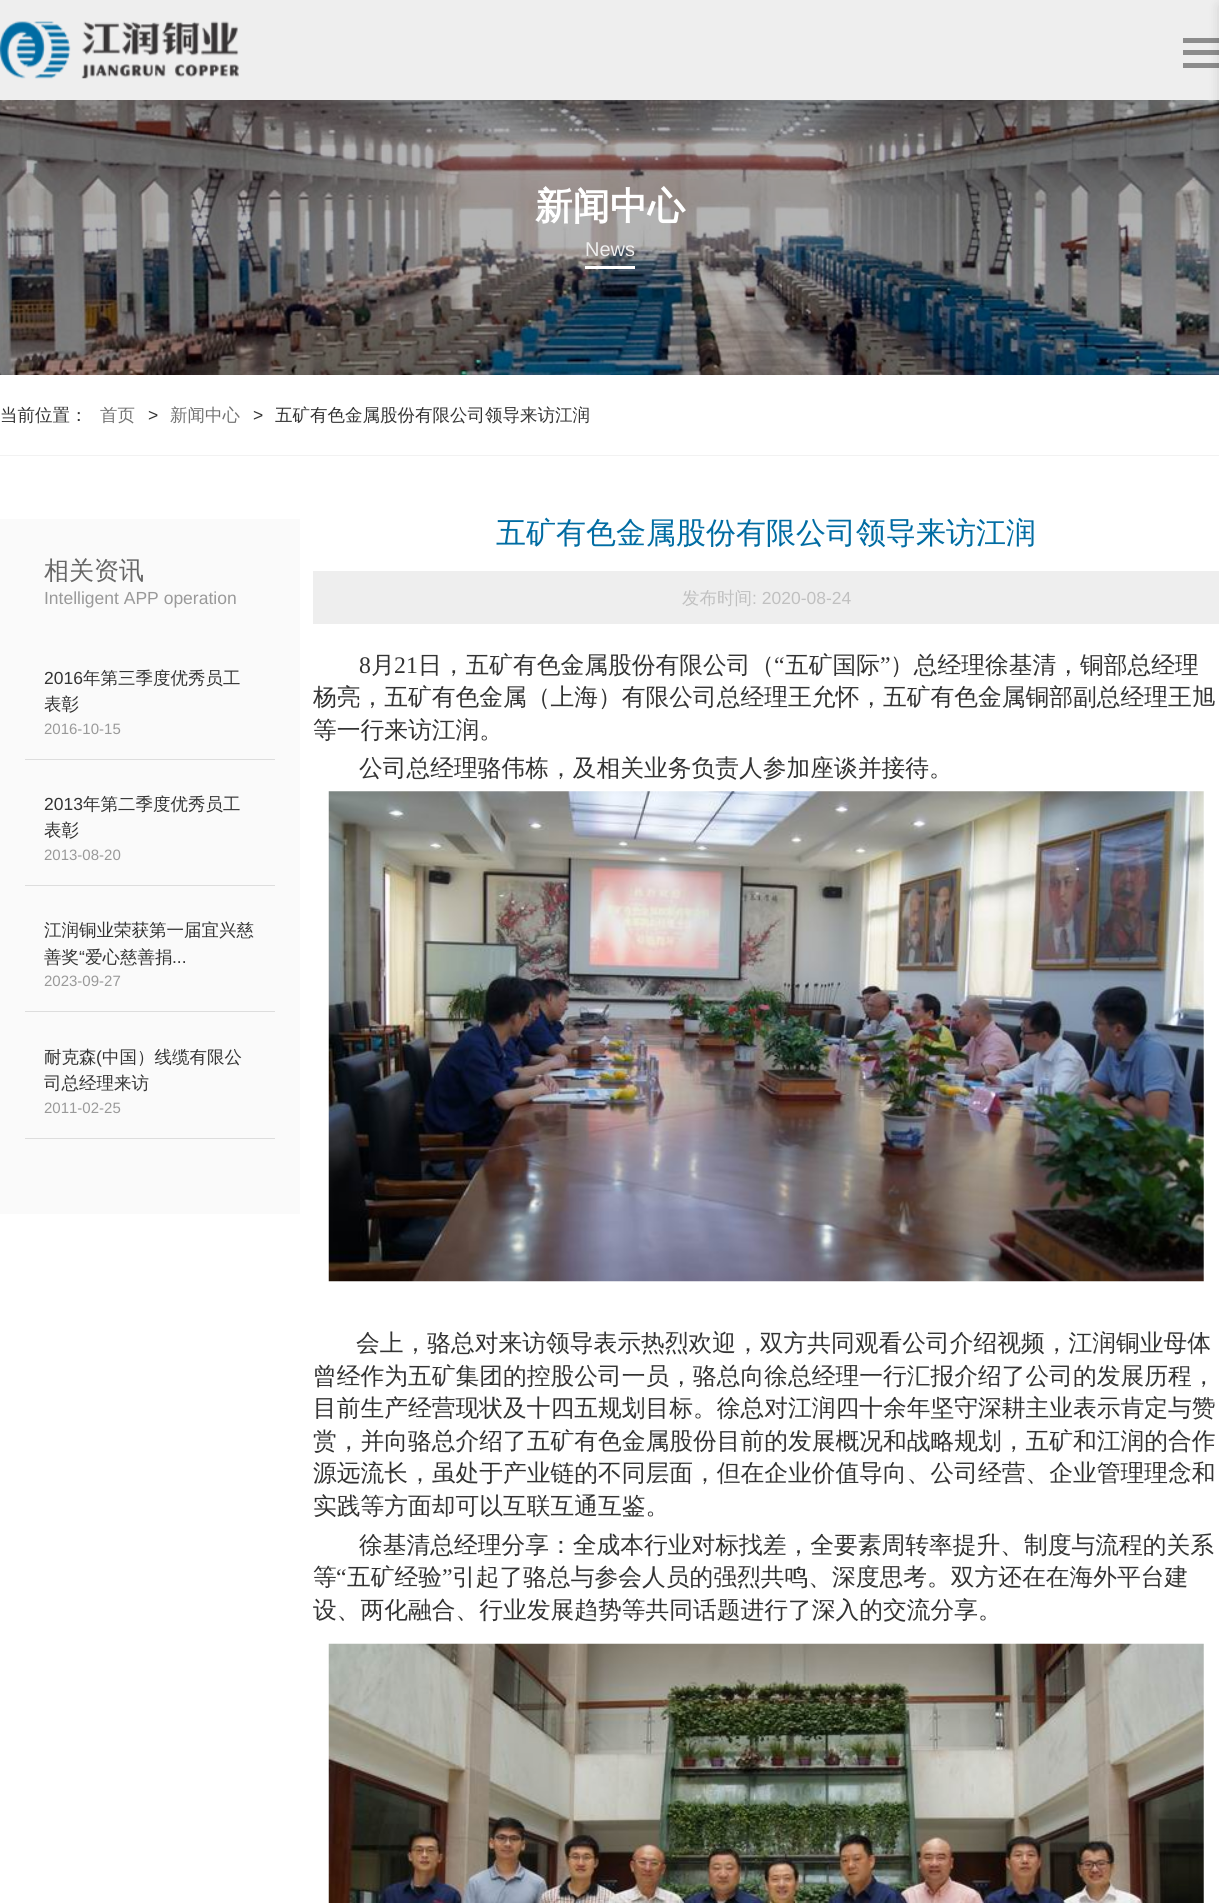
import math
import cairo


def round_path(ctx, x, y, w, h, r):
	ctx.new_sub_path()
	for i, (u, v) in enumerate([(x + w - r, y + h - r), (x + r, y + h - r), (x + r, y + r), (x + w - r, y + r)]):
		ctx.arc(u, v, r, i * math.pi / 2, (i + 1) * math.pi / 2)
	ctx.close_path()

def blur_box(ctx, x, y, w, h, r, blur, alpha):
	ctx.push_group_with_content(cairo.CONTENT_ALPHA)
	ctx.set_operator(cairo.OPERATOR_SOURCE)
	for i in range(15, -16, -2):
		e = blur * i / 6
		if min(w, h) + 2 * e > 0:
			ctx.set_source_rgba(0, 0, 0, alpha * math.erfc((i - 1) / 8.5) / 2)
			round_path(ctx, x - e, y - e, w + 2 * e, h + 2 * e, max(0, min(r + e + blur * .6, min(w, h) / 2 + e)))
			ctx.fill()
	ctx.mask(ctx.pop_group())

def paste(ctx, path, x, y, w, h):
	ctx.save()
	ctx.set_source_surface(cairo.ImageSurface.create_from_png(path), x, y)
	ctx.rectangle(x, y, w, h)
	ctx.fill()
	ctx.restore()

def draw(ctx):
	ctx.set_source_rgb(1, 1, 1)
	ctx.paint()
	ctx.set_source_rgb(0.933, 0.933, 0.933)
	ctx.rectangle(0, 0, 1219, 100)
	ctx.fill()
	ctx.set_source_rgb(0.549, 0.549, 0.549)
	ctx.rectangle(1183, 38, 36, 5)
	ctx.rectangle(1183, 50, 36, 5)
	ctx.rectangle(1183, 63, 36, 5)
	ctx.fill()
	paste(ctx, 'media/2.png', 0, 100, 1219, 275)
	ctx.set_source_rgb(0, 0, 0)
	blur_box(ctx, 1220, 6, 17, 143, 0, 6, 0.15)
	paste(ctx, 'media/1.png', 0, 21, 239, 58)
	ctx.select_font_face('WenQuanYi Zen Hei', cairo.FONT_SLANT_NORMAL, cairo.FONT_WEIGHT_BOLD)
	ctx.set_font_size(37.5)
	ctx.set_source_rgb(1, 1, 1)
	ctx.move_to(535, 219)
	ctx.show_text('新闻中心')
	ctx.select_font_face('Liberation Sans')
	ctx.set_font_size(20)
	ctx.set_source_rgb(0.933, 0.933, 0.933)
	ctx.move_to(585, 256)
	ctx.show_text('News')
	ctx.set_source_rgb(1, 1, 1)
	ctx.rectangle(585, 266, 50, 3)
	ctx.fill()
	ctx.set_source_rgb(0.949, 0.949, 0.949)
	ctx.rectangle(0, 455, 1219, 1)
	ctx.fill()
	ctx.select_font_face('WenQuanYi Zen Hei Medium')
	ctx.set_font_size(17.5)
	ctx.set_source_rgb(0.2, 0.2, 0.2)
	ctx.move_to(0, 421)
	ctx.show_text('当前位置：')
	ctx.set_source_rgb(0.451, 0.451, 0.451)
	ctx.move_to(100, 421)
	ctx.show_text('首页')
	ctx.select_font_face('Liberation Sans')
	ctx.set_source_rgb(0.2, 0.2, 0.2)
	ctx.move_to(148, 421)
	ctx.show_text('>')
	ctx.select_font_face('WenQuanYi Zen Hei Medium')
	ctx.set_source_rgb(0.451, 0.451, 0.451)
	ctx.move_to(170, 421)
	ctx.show_text('新闻中心')
	ctx.select_font_face('Liberation Sans')
	ctx.set_source_rgb(0.2, 0.2, 0.2)
	ctx.move_to(253, 421)
	ctx.show_text('>')
	ctx.select_font_face('WenQuanYi Zen Hei Medium')
	ctx.move_to(275, 421)
	ctx.show_text('五矿有色金属股份有限公司领导来访江润')
	ctx.set_source_rgb(0.98, 0.98, 0.98)
	ctx.rectangle(0, 519, 300, 695)
	ctx.fill()
	ctx.set_font_size(25)
	ctx.set_source_rgb(0.4, 0.4, 0.4)
	ctx.move_to(44, 579)
	ctx.show_text('相关资讯')
	ctx.select_font_face('Liberation Sans')
	ctx.set_font_size(17.5)
	ctx.set_source_rgb(0.6, 0.6, 0.6)
	ctx.move_to(44, 604)
	ctx.show_text('Intelligent APP operation')
	ctx.set_source_rgb(0.867, 0.867, 0.867)
	ctx.rectangle(25, 759, 250, 1)
	ctx.fill()
	ctx.set_source_rgb(0.2, 0.2, 0.2)
	ctx.move_to(44, 684)
	ctx.show_text('2016')
	ctx.select_font_face('WenQuanYi Zen Hei Medium')
	ctx.move_to(83, 684)
	ctx.show_text('年第三季度优秀员工')
	ctx.move_to(44, 710)
	ctx.show_text('表彰')
	ctx.select_font_face('Liberation Sans')
	ctx.set_font_size(15)
	ctx.set_source_rgb(0.6, 0.6, 0.6)
	ctx.move_to(44, 734)
	ctx.show_text('2016-10-15')
	ctx.set_source_rgb(0.867, 0.867, 0.867)
	ctx.rectangle(25, 885, 250, 1)
	ctx.fill()
	ctx.set_font_size(17.5)
	ctx.set_source_rgb(0.2, 0.2, 0.2)
	ctx.move_to(44, 810)
	ctx.show_text('2013')
	ctx.select_font_face('WenQuanYi Zen Hei Medium')
	ctx.move_to(83, 810)
	ctx.show_text('年第二季度优秀员工')
	ctx.move_to(44, 836)
	ctx.show_text('表彰')
	ctx.select_font_face('Liberation Sans')
	ctx.set_font_size(15)
	ctx.set_source_rgb(0.6, 0.6, 0.6)
	ctx.move_to(44, 860)
	ctx.show_text('2013-08-20')
	ctx.set_source_rgb(0.867, 0.867, 0.867)
	ctx.rectangle(25, 1011, 250, 1)
	ctx.fill()
	ctx.select_font_face('WenQuanYi Zen Hei Medium')
	ctx.set_font_size(17.5)
	ctx.set_source_rgb(0.2, 0.2, 0.2)
	ctx.move_to(44, 936)
	ctx.show_text('江润铜业荣获第一届宜兴慈')
	ctx.move_to(44, 963)
	ctx.show_text('善奖')
	ctx.select_font_face('Liberation Sans')
	ctx.move_to(79, 963)
	ctx.show_text('“')
	ctx.select_font_face('WenQuanYi Zen Hei Medium')
	ctx.move_to(85, 963)
	ctx.show_text('爱心慈善捐')
	ctx.select_font_face('Liberation Sans')
	ctx.move_to(172, 963)
	ctx.show_text('...')
	ctx.set_font_size(15)
	ctx.set_source_rgb(0.6, 0.6, 0.6)
	ctx.move_to(44, 986)
	ctx.show_text('2023-09-27')
	ctx.set_source_rgb(0.867, 0.867, 0.867)
	ctx.rectangle(25, 1138, 250, 1)
	ctx.fill()
	ctx.select_font_face('WenQuanYi Zen Hei Medium')
	ctx.set_font_size(17.5)
	ctx.set_source_rgb(0.2, 0.2, 0.2)
	ctx.move_to(44, 1063)
	ctx.show_text('耐克森')
	ctx.select_font_face('Liberation Sans')
	ctx.move_to(96, 1063)
	ctx.show_text('(')
	ctx.select_font_face('WenQuanYi Zen Hei Medium')
	ctx.move_to(102, 1063)
	ctx.show_text('中国）线缆有限公')
	ctx.move_to(44, 1089)
	ctx.show_text('司总经理来访')
	ctx.select_font_face('Liberation Sans')
	ctx.set_font_size(15)
	ctx.set_source_rgb(0.6, 0.6, 0.6)
	ctx.move_to(44, 1113)
	ctx.show_text('2011-02-25')
	ctx.select_font_face('WenQuanYi Zen Hei Medium')
	ctx.set_font_size(30)
	ctx.set_source_rgb(0, 0.424, 0.639)
	ctx.move_to(496, 543)
	ctx.show_text('五矿有色金属股份有限公司领导来访江润')
	ctx.set_source_rgb(0.933, 0.933, 0.933)
	ctx.rectangle(313, 571, 906, 53)
	ctx.fill()
	ctx.set_font_size(17.5)
	ctx.set_source_rgb(0.753, 0.753, 0.753)
	ctx.move_to(682, 604)
	ctx.show_text('发布时间')
	ctx.select_font_face('Liberation Sans')
	ctx.move_to(752, 604)
	ctx.show_text(': 2020-08-24')
	ctx.select_font_face('Liberation Serif')
	ctx.set_font_size(23.75)
	ctx.set_source_rgb(0.2, 0.2, 0.2)
	ctx.move_to(359, 673)
	ctx.show_text('8')
	ctx.select_font_face('WenQuanYi Zen Hei Medium')
	ctx.move_to(371, 673)
	ctx.show_text('月')
	ctx.select_font_face('Liberation Serif')
	ctx.move_to(394, 673)
	ctx.show_text('21')
	ctx.select_font_face('WenQuanYi Zen Hei Medium')
	ctx.move_to(418, 673)
	ctx.show_text('日，五矿有色金属股份有限公司（')
	ctx.select_font_face('Liberation Serif')
	ctx.move_to(774, 673)
	ctx.show_text('“')
	ctx.select_font_face('WenQuanYi Zen Hei Medium')
	ctx.move_to(785, 673)
	ctx.show_text('五矿国际')
	ctx.select_font_face('Liberation Serif')
	ctx.move_to(880, 673)
	ctx.show_text('”')
	ctx.select_font_face('WenQuanYi Zen Hei Medium')
	for x, y, s in [
		(890, 673, '）总经理徐基清，铜部总经理'),
		(313, 705, '杨亮，五矿有色金属（上海）有限公司总经理王允怀，五矿有色金属铜部副总经理王旭'),
		(313, 738, '等一行来访江润。'),
		(359, 776, '公司总经理骆伟栋，及相关业务负责人参加座谈并接待。'),
	]:
		ctx.move_to(x, y)
		ctx.show_text(s)
	paste(ctx, 'media/3.png', 328, 791, 876, 491)
	for x, y, s in [
		(356, 1351, '会上，骆总对来访领导表示热烈欢迎，双方共同观看公司介绍视频，江润铜业母体'),
		(313, 1384, '曾经作为五矿集团的控股公司一员，骆总向徐总经理一行汇报介绍了公司的发展历程，'),
		(313, 1416, '目前生产经营现状及十四五规划目标。徐总对江润四十余年坚守深耕主业表示肯定与赞'),
		(313, 1449, '赏，并向骆总介绍了五矿有色金属股份目前的发展概况和战略规划，五矿和江润的合作'),
		(313, 1481, '源远流长，虽处于产业链的不同层面，但在企业价值导向、公司经营、企业管理理念和'),
		(313, 1514, '实践等方面却可以互联互通互鉴。'),
		(359, 1553, '徐基清总经理分享：全成本行业对标找差，全要素周转率提升、制度与流程的关系'),
		(313, 1585, '等'),
	]:
		ctx.move_to(x, y)
		ctx.show_text(s)
	ctx.select_font_face('Liberation Serif')
	ctx.move_to(336, 1585)
	ctx.show_text('“')
	ctx.select_font_face('WenQuanYi Zen Hei Medium')
	ctx.move_to(347, 1585)
	ctx.show_text('五矿经验')
	ctx.select_font_face('Liberation Serif')
	ctx.move_to(442, 1585)
	ctx.show_text('”')
	ctx.select_font_face('WenQuanYi Zen Hei Medium')
	ctx.move_to(452, 1585)
	ctx.show_text('引起了骆总与参会人员的强烈共鸣、深度思考。双方还在在海外平台建')
	ctx.move_to(313, 1618)
	ctx.show_text('设、两化融合、行业发展趋势等共同话题进行了深入的交流分享。')
	paste(ctx, 'media/4.png', 328, 1643, 876, 260)


surface = cairo.ImageSurface(cairo.FORMAT_RGB24, 1219, 1903)
ctx = cairo.Context(surface)
options = cairo.FontOptions()
options.set_hint_metrics(cairo.HINT_METRICS_OFF)
options.set_hint_style(cairo.HINT_STYLE_NONE)
ctx.set_font_options(options)
ctx.set_miter_limit(4)
draw(ctx)
surface.write_to_png('image.png')
